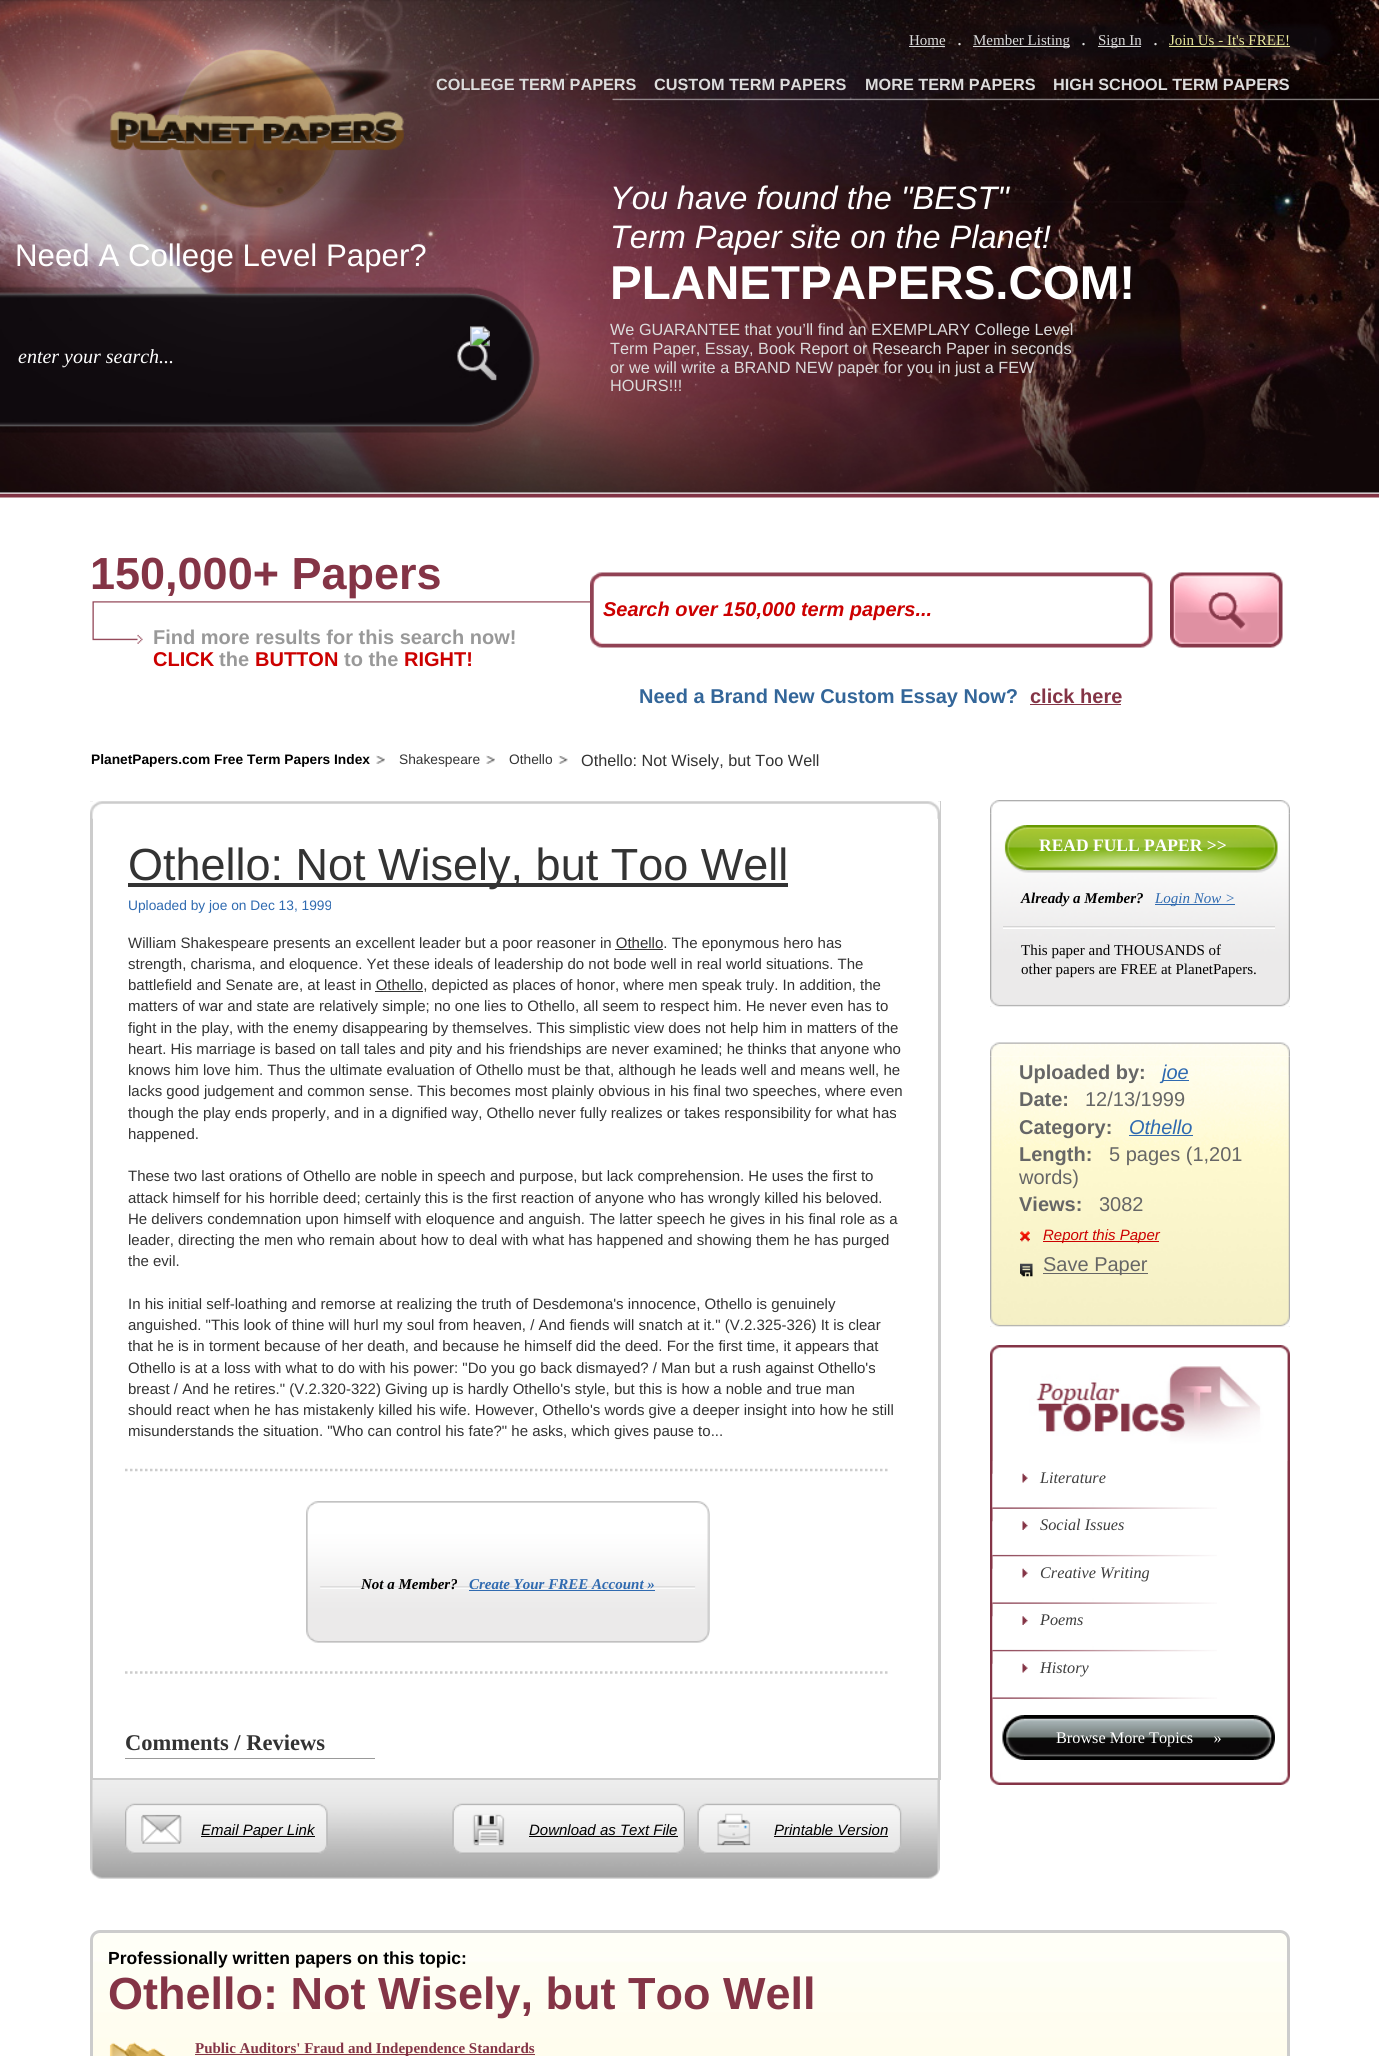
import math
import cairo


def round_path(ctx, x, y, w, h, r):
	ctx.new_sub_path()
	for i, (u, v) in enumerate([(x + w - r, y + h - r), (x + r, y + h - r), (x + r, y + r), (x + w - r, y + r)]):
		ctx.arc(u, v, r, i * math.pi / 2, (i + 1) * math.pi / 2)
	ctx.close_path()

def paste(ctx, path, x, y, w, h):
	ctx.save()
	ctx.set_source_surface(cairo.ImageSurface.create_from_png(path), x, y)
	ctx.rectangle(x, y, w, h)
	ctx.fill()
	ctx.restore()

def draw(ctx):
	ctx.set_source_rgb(1, 1, 1)
	ctx.paint()
	paste(ctx, 'media/1.png', 0, 0, 1379, 498)
	ctx.select_font_face('Liberation Sans')
	ctx.set_font_size(31.25)
	ctx.set_source_rgb(1, 1, 1)
	ctx.move_to(15, 266)
	ctx.show_text('Need A College Level Paper?')
	paste(ctx, 'media/2.png', 470, 326, 20, 21)
	ctx.select_font_face('Liberation Serif', cairo.FONT_SLANT_ITALIC)
	ctx.set_font_size(20)
	ctx.move_to(18, 363)
	ctx.show_text('enter your search...')
	ctx.select_font_face('Liberation Serif')
	ctx.set_font_size(15)
	ctx.set_source_rgb(0.863, 0.863, 0.863)
	ctx.move_to(909, 45)
	ctx.show_text('Home')
	ctx.rectangle(909, 46, 36, 1)
	ctx.fill()
	ctx.set_font_size(20)
	ctx.move_to(957, 45)
	ctx.show_text('.')
	ctx.rectangle(973, 46, 97, 1)
	ctx.fill()
	ctx.set_font_size(15)
	ctx.move_to(973, 45)
	ctx.show_text('Member Listing')
	ctx.set_font_size(20)
	ctx.move_to(1081, 45)
	ctx.show_text('.')
	ctx.rectangle(1098, 46, 43, 1)
	ctx.fill()
	ctx.set_font_size(15)
	ctx.move_to(1098, 45)
	ctx.show_text('Sign In')
	ctx.set_font_size(20)
	ctx.move_to(1153, 45)
	ctx.show_text('.')
	ctx.set_font_size(15)
	ctx.set_source_rgb(0.91, 0.906, 0.612)
	ctx.move_to(1169, 45)
	ctx.show_text('Join Us - It\'s FREE!')
	ctx.rectangle(1169, 46, 121, 1)
	ctx.fill()
	ctx.select_font_face('Liberation Sans', cairo.FONT_SLANT_NORMAL, cairo.FONT_WEIGHT_BOLD)
	ctx.set_font_size(16.25)
	ctx.set_source_rgb(0.863, 0.863, 0.863)
	for x, y, s in [
		(436, 90, 'COLLEGE TERM PAPERS'),
		(654, 90, 'CUSTOM TERM PAPERS'),
		(865, 90, 'MORE TERM PAPERS'),
		(1053, 90, 'HIGH SCHOOL TERM PAPERS'),
	]:
		ctx.move_to(x, y)
		ctx.show_text(s)
	ctx.select_font_face('Liberation Sans', cairo.FONT_SLANT_ITALIC)
	ctx.set_font_size(32.5)
	ctx.set_source_rgb(1, 1, 1)
	ctx.move_to(610, 209)
	ctx.show_text('You have found the "BEST"')
	ctx.move_to(610, 248)
	ctx.show_text('Term Paper site on the Planet!')
	ctx.select_font_face('Liberation Sans', cairo.FONT_SLANT_NORMAL, cairo.FONT_WEIGHT_BOLD)
	ctx.set_font_size(47.5)
	ctx.move_to(610, 299)
	ctx.show_text('PLANETPAPERS.COM!')
	ctx.select_font_face('Liberation Sans')
	ctx.set_font_size(16.25)
	ctx.set_source_rgb(0.863, 0.863, 0.863)
	for x, y, s in [
		(610, 335, 'We GUARANTEE that you’ll find an EXEMPLARY College Level'),
		(610, 354, 'Term Paper, Essay, Book Report or Research Paper in seconds'),
		(610, 373, 'or we will write a BRAND NEW paper for you in just a FEW'),
		(610, 391, 'HOURS!!!'),
	]:
		ctx.move_to(x, y)
		ctx.show_text(s)
	ctx.select_font_face('Liberation Sans', cairo.FONT_SLANT_NORMAL, cairo.FONT_WEIGHT_BOLD)
	ctx.set_font_size(45)
	ctx.set_source_rgb(0.518, 0.204, 0.275)
	ctx.move_to(90, 589)
	ctx.show_text('150,000+ Papers')
	paste(ctx, 'media/3.png', 92, 601, 498, 43)
	ctx.set_font_size(20)
	ctx.set_source_rgb(0.6, 0.6, 0.6)
	ctx.move_to(153, 644)
	ctx.show_text('Find more results for this search now!')
	ctx.set_source_rgb(0.8, 0, 0)
	ctx.move_to(153, 666)
	ctx.show_text('CLICK')
	ctx.set_source_rgb(0.6, 0.6, 0.6)
	ctx.move_to(219, 666)
	ctx.show_text('the')
	ctx.set_source_rgb(0.8, 0, 0)
	ctx.move_to(255, 666)
	ctx.show_text('BUTTON')
	ctx.set_source_rgb(0.6, 0.6, 0.6)
	ctx.move_to(344, 666)
	ctx.show_text('to the')
	ctx.set_source_rgb(0.8, 0, 0)
	ctx.move_to(404, 666)
	ctx.show_text('RIGHT!')
	paste(ctx, 'media/4.png', 590, 572, 563, 76)
	ctx.select_font_face('Liberation Sans', cairo.FONT_SLANT_ITALIC, cairo.FONT_WEIGHT_BOLD)
	ctx.move_to(603, 616)
	ctx.show_text('Search over 150,000 term papers...')
	paste(ctx, 'media/5.png', 1170, 572, 113, 76)
	ctx.select_font_face('Liberation Sans', cairo.FONT_SLANT_NORMAL, cairo.FONT_WEIGHT_BOLD)
	ctx.set_source_rgb(0.2, 0.4, 0.6)
	ctx.move_to(639, 703)
	ctx.show_text('Need a Brand New Custom Essay Now?')
	ctx.set_source_rgb(0.518, 0.204, 0.275)
	ctx.move_to(1030, 703)
	ctx.show_text('click here')
	ctx.rectangle(1030, 704, 91, 1)
	ctx.fill()
	ctx.set_font_size(13.75)
	ctx.set_source_rgb(0, 0, 0)
	ctx.move_to(91, 764)
	ctx.show_text('PlanetPapers.com Free Term Papers Index')
	paste(ctx, 'media/6.png', 376, 755, 9, 9)
	ctx.select_font_face('Liberation Sans')
	ctx.set_source_rgb(0.2, 0.2, 0.2)
	ctx.move_to(399, 764)
	ctx.show_text('Shakespeare')
	paste(ctx, 'media/6.png', 486, 755, 9, 9)
	ctx.move_to(509, 764)
	ctx.show_text('Othello')
	paste(ctx, 'media/7.png', 558, 755, 10, 9)
	ctx.set_font_size(16.25)
	ctx.move_to(581, 766)
	ctx.show_text('Othello: Not Wisely, but Too Well')
	ctx.set_source_rgb(0.8, 0.8, 0.8)
	ctx.rectangle(938, 801, 3, 979)
	ctx.rectangle(90, 1778, 850, 2)
	ctx.rectangle(90, 801, 3, 979)
	ctx.fill()
	paste(ctx, 'media/8.png', 90, 801, 850, 18)
	ctx.set_source_rgb(0.2, 0.2, 0.2)
	ctx.rectangle(128, 883, 660, 4)
	ctx.fill()
	ctx.set_font_size(45)
	ctx.move_to(128, 880)
	ctx.show_text('Othello: Not Wisely, but Too Well')
	ctx.set_font_size(13.75)
	ctx.set_source_rgb(0.184, 0.416, 0.69)
	ctx.move_to(128, 910)
	ctx.show_text('Uploaded by joe on Dec 13, 1999')
	ctx.set_font_size(15)
	ctx.set_source_rgb(0.2, 0.2, 0.2)
	ctx.move_to(128, 948)
	ctx.show_text('William Shakespeare presents an excellent leader but a poor reasoner in Othello. The eponymous hero has')
	ctx.rectangle(615, 949, 48, 1)
	ctx.fill()
	ctx.move_to(128, 969)
	ctx.show_text('strength, charisma, and eloquence. Yet these ideals of leadership do not bode well in real world situations. The')
	ctx.move_to(128, 990)
	ctx.show_text('battlefield and Senate are, at least in Othello, depicted as places of honor, where men speak truly. In addition, the')
	ctx.rectangle(375, 991, 48, 1)
	ctx.fill()
	for x, y, s in [
		(128, 1011, 'matters of war and state are relatively simple; no one lies to Othello, all seem to respect him. He never even has to'),
		(128, 1033, 'fight in the play, with the enemy disappearing by themselves. This simplistic view does not help him in matters of the'),
		(128, 1054, 'heart. His marriage is based on tall tales and pity and his friendships are never examined; he thinks that anyone who'),
		(128, 1075, 'knows him love him. Thus the ultimate evaluation of Othello must be that, although he leads well and means well, he'),
		(128, 1096, 'lacks good judgement and common sense. This becomes most plainly obvious in his final two speeches, where even'),
		(128, 1118, 'though the play ends properly, and in a dignified way, Othello never fully realizes or takes responsibility for what has'),
		(128, 1139, 'happened.'),
		(128, 1181, 'These two last orations of Othello are noble in speech and purpose, but lack comprehension. He uses the first to'),
		(128, 1203, 'attack himself for his horrible deed; certainly this is the first reaction of anyone who has wrongly killed his beloved.'),
		(128, 1224, 'He delivers condemnation upon himself with eloquence and anguish. The latter speech he gives in his final role as a'),
		(128, 1245, 'leader, directing the men who remain about how to deal with what has happened and showing them he has purged'),
		(128, 1266, 'the evil.'),
		(128, 1309, 'In his initial self-loathing and remorse at realizing the truth of Desdemona\'s innocence, Othello is genuinely'),
		(128, 1330, 'anguished. "This look of thine will hurl my soul from heaven, / And fiends will snatch at it." (V.2.325-326) It is clear'),
		(128, 1351, 'that he is in torment because of her death, and because he himself did the deed. For the first time, it appears that'),
		(128, 1373, 'Othello is at a loss with what to do with his power: "Do you go back dismayed? / Man but a rush against Othello\'s'),
		(128, 1394, 'breast / And he retires." (V.2.320-322) Giving up is hardly Othello\'s style, but this is how a noble and true man'),
		(128, 1415, 'should react when he has mistakenly killed his wife. However, Othello\'s words give a deeper insight into how he still'),
		(128, 1436, 'misunderstands the situation. "Who can control his fate?" he asks, which gives pause to...'),
	]:
		ctx.move_to(x, y)
		ctx.show_text(s)
	ctx.new_path()
	ctx.move_to(125, 1470)
	ctx.line_to(887.5, 1470)
	ctx.set_source_rgb(0.8, 0.8, 0.8)
	ctx.set_line_width(2.5)
	ctx.set_dash([2.5, 2.5])
	ctx.stroke()
	ctx.new_path()
	ctx.move_to(125, 1672.5)
	ctx.line_to(887.5, 1672.5)
	ctx.stroke()
	paste(ctx, 'media/9.png', 306, 1501, 404, 142)
	ctx.select_font_face('Liberation Serif', cairo.FONT_SLANT_ITALIC, cairo.FONT_WEIGHT_BOLD)
	ctx.set_source_rgb(0, 0, 0)
	ctx.move_to(361, 1589)
	ctx.show_text('Not a Member?')
	ctx.set_source_rgb(0.184, 0.416, 0.69)
	ctx.move_to(469, 1589)
	ctx.show_text('Create Your FREE Account »')
	ctx.rectangle(469, 1590, 186, 1)
	ctx.fill()
	ctx.set_source_rgb(0.6, 0.6, 0.6)
	ctx.rectangle(125, 1758, 250, 1)
	ctx.fill()
	ctx.select_font_face('Liberation Serif', cairo.FONT_SLANT_NORMAL, cairo.FONT_WEIGHT_BOLD)
	ctx.set_font_size(22.5)
	ctx.set_source_rgb(0.2, 0.2, 0.2)
	ctx.move_to(125, 1750)
	ctx.show_text('Comments / Reviews')
	paste(ctx, 'media/10.png', 90, 1780, 850, 99)
	paste(ctx, 'media/11.png', 125, 1803, 203, 51)
	ctx.set_source_rgb(0, 0, 0)
	ctx.rectangle(201, 1836, 114, 1)
	ctx.fill()
	ctx.select_font_face('Liberation Sans', cairo.FONT_SLANT_ITALIC)
	ctx.set_font_size(15)
	ctx.move_to(201, 1835)
	ctx.show_text('Email Paper Link')
	paste(ctx, 'media/12.png', 452, 1803, 233, 51)
	ctx.move_to(529, 1835)
	ctx.show_text('Download as Text File')
	ctx.rectangle(529, 1836, 149, 1)
	ctx.fill()
	paste(ctx, 'media/13.png', 697, 1803, 205, 51)
	ctx.move_to(774, 1835)
	ctx.show_text('Printable Version')
	ctx.rectangle(774, 1836, 114, 1)
	ctx.fill()
	paste(ctx, 'media/15.png', 990, 813, 300, 194)
	paste(ctx, 'media/16.png', 990, 813, 300, 194)
	paste(ctx, 'media/14.png', 990, 800, 300, 14)
	paste(ctx, 'media/17.png', 1004, 825, 274, 48)
	ctx.select_font_face('Liberation Serif', cairo.FONT_SLANT_NORMAL, cairo.FONT_WEIGHT_BOLD)
	ctx.set_font_size(17.5)
	ctx.set_source_rgb(1, 1, 1)
	ctx.move_to(1039, 851)
	ctx.show_text('READ FULL PAPER >>')
	ctx.select_font_face('Liberation Serif', cairo.FONT_SLANT_ITALIC, cairo.FONT_WEIGHT_BOLD)
	ctx.set_font_size(15)
	ctx.set_source_rgb(0, 0, 0)
	ctx.move_to(1021, 903)
	ctx.show_text('Already a Member?')
	ctx.set_source_rgb(0.184, 0.416, 0.69)
	ctx.rectangle(1155, 904, 80, 1)
	ctx.fill()
	ctx.select_font_face('Liberation Serif', cairo.FONT_SLANT_ITALIC)
	ctx.move_to(1155, 903)
	ctx.show_text('Login Now >')
	ctx.set_source_rgb(0.835, 0.835, 0.835)
	ctx.rectangle(1003, 926, 272, 1)
	ctx.fill()
	ctx.set_source_rgb(1, 1, 1)
	ctx.rectangle(1003, 928, 272, 1)
	ctx.fill()
	ctx.select_font_face('Liberation Serif')
	ctx.set_source_rgb(0, 0, 0)
	ctx.move_to(1021, 955)
	ctx.show_text('This paper and THOUSANDS of')
	ctx.move_to(1021, 974)
	ctx.show_text('other papers are FREE at PlanetPapers.')
	paste(ctx, 'media/19.png', 990, 1056, 300, 271)
	paste(ctx, 'media/18.png', 990, 1042, 300, 15)
	paste(ctx, 'media/20.png', 990, 1075, 300, 252)
	ctx.select_font_face('Liberation Sans', cairo.FONT_SLANT_NORMAL, cairo.FONT_WEIGHT_BOLD)
	ctx.set_font_size(20)
	ctx.set_source_rgb(0.4, 0.4, 0.4)
	ctx.move_to(1019, 1079)
	ctx.show_text('Uploaded by:')
	ctx.set_source_rgb(0.184, 0.416, 0.69)
	ctx.rectangle(1163, 1080, 26, 1)
	ctx.fill()
	ctx.select_font_face('Liberation Sans', cairo.FONT_SLANT_ITALIC)
	ctx.move_to(1162, 1079)
	ctx.show_text('joe')
	ctx.select_font_face('Liberation Sans', cairo.FONT_SLANT_NORMAL, cairo.FONT_WEIGHT_BOLD)
	ctx.set_source_rgb(0.4, 0.4, 0.4)
	ctx.move_to(1019, 1106)
	ctx.show_text('Date:')
	ctx.select_font_face('Liberation Sans')
	ctx.move_to(1085, 1106)
	ctx.show_text('12/13/1999')
	ctx.select_font_face('Liberation Sans', cairo.FONT_SLANT_NORMAL, cairo.FONT_WEIGHT_BOLD)
	ctx.move_to(1019, 1134)
	ctx.show_text('Category:')
	ctx.select_font_face('Liberation Sans', cairo.FONT_SLANT_ITALIC)
	ctx.set_source_rgb(0.184, 0.416, 0.69)
	ctx.move_to(1129, 1134)
	ctx.show_text('Othello')
	ctx.rectangle(1129, 1135, 64, 1)
	ctx.fill()
	ctx.select_font_face('Liberation Sans', cairo.FONT_SLANT_NORMAL, cairo.FONT_WEIGHT_BOLD)
	ctx.set_source_rgb(0.4, 0.4, 0.4)
	ctx.move_to(1019, 1161)
	ctx.show_text('Length:')
	ctx.select_font_face('Liberation Sans')
	ctx.move_to(1109, 1161)
	ctx.show_text('5 pages (1,201')
	ctx.move_to(1019, 1184)
	ctx.show_text('words)')
	ctx.select_font_face('Liberation Sans', cairo.FONT_SLANT_NORMAL, cairo.FONT_WEIGHT_BOLD)
	ctx.move_to(1019, 1211)
	ctx.show_text('Views:')
	ctx.select_font_face('Liberation Sans')
	ctx.move_to(1099, 1211)
	ctx.show_text('3082')
	paste(ctx, 'media/21.png', 1020, 1231, 10, 11)
	ctx.set_source_rgb(0.8, 0, 0)
	ctx.rectangle(1043, 1241, 116, 1)
	ctx.fill()
	ctx.select_font_face('Liberation Sans', cairo.FONT_SLANT_ITALIC)
	ctx.set_font_size(15)
	ctx.move_to(1043, 1240)
	ctx.show_text('Report this Paper')
	paste(ctx, 'media/22.png', 1020, 1263, 13, 14)
	ctx.set_source_rgb(0.4, 0.4, 0.4)
	ctx.rectangle(1043, 1273, 105, 1)
	ctx.fill()
	ctx.select_font_face('Liberation Sans')
	ctx.set_font_size(20)
	ctx.move_to(1043, 1271)
	ctx.show_text('Save Paper')
	paste(ctx, 'media/23.png', 990, 1461, 300, 312)
	paste(ctx, 'media/24.png', 990, 1345, 300, 116)
	paste(ctx, 'media/25.png', 992, 1473, 225, 36)
	paste(ctx, 'media/26.png', 1022, 1473, 6, 10)
	ctx.select_font_face('Liberation Serif', cairo.FONT_SLANT_ITALIC)
	ctx.set_font_size(16.25)
	ctx.set_source_rgb(0.239, 0.239, 0.239)
	ctx.move_to(1040, 1483)
	ctx.show_text('Literature')
	paste(ctx, 'media/27.png', 992, 1521, 225, 36)
	paste(ctx, 'media/28.png', 1022, 1521, 6, 9)
	ctx.move_to(1040, 1530)
	ctx.show_text('Social Issues')
	paste(ctx, 'media/25.png', 992, 1568, 225, 36)
	paste(ctx, 'media/26.png', 1022, 1568, 6, 10)
	ctx.move_to(1040, 1578)
	ctx.show_text('Creative Writing')
	paste(ctx, 'media/27.png', 992, 1616, 225, 36)
	paste(ctx, 'media/28.png', 1022, 1616, 6, 9)
	ctx.move_to(1040, 1625)
	ctx.show_text('Poems')
	paste(ctx, 'media/25.png', 992, 1663, 225, 36)
	paste(ctx, 'media/26.png', 1022, 1663, 6, 10)
	ctx.move_to(1040, 1673)
	ctx.show_text('History')
	paste(ctx, 'media/29.png', 1002, 1715, 273, 45)
	ctx.select_font_face('Liberation Serif')
	ctx.set_source_rgb(1, 1, 1)
	ctx.move_to(1056, 1743)
	ctx.show_text('Browse More Topics     »')
	paste(ctx, 'media/30.png', 990, 1772, 300, 13)
	paste(ctx, 'media/31.png', 92, 1932, 1198, 124)
	round_path(ctx, 91.5, 1931.5, 1197, 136, 8.5)
	ctx.set_source_rgb(0.8, 0.8, 0.8)
	ctx.set_line_width(3)
	ctx.set_dash([])
	ctx.stroke()
	ctx.select_font_face('Liberation Sans', cairo.FONT_SLANT_NORMAL, cairo.FONT_WEIGHT_BOLD)
	ctx.set_font_size(17.5)
	ctx.set_source_rgb(0, 0, 0)
	ctx.move_to(108, 1964)
	ctx.show_text('Professionally written papers on this topic:')
	ctx.set_font_size(45)
	ctx.set_source_rgb(0.518, 0.204, 0.275)
	ctx.move_to(108, 2009)
	ctx.show_text('Othello: Not Wisely, but Too Well')
	paste(ctx, 'media/32.png', 109, 2042, 57, 14)
	ctx.rectangle(195, 2054, 340, 1)
	ctx.fill()
	ctx.select_font_face('Liberation Serif', cairo.FONT_SLANT_NORMAL, cairo.FONT_WEIGHT_BOLD)
	ctx.set_font_size(15)
	ctx.move_to(195, 2053)
	ctx.show_text('Public Auditors\' Fraud and Independence Standards')


surface = cairo.ImageSurface(cairo.FORMAT_RGB24, 1379, 2056)
ctx = cairo.Context(surface)
options = cairo.FontOptions()
options.set_hint_metrics(cairo.HINT_METRICS_OFF)
options.set_hint_style(cairo.HINT_STYLE_NONE)
ctx.set_font_options(options)
ctx.set_miter_limit(4)
draw(ctx)
surface.write_to_png('image.png')
